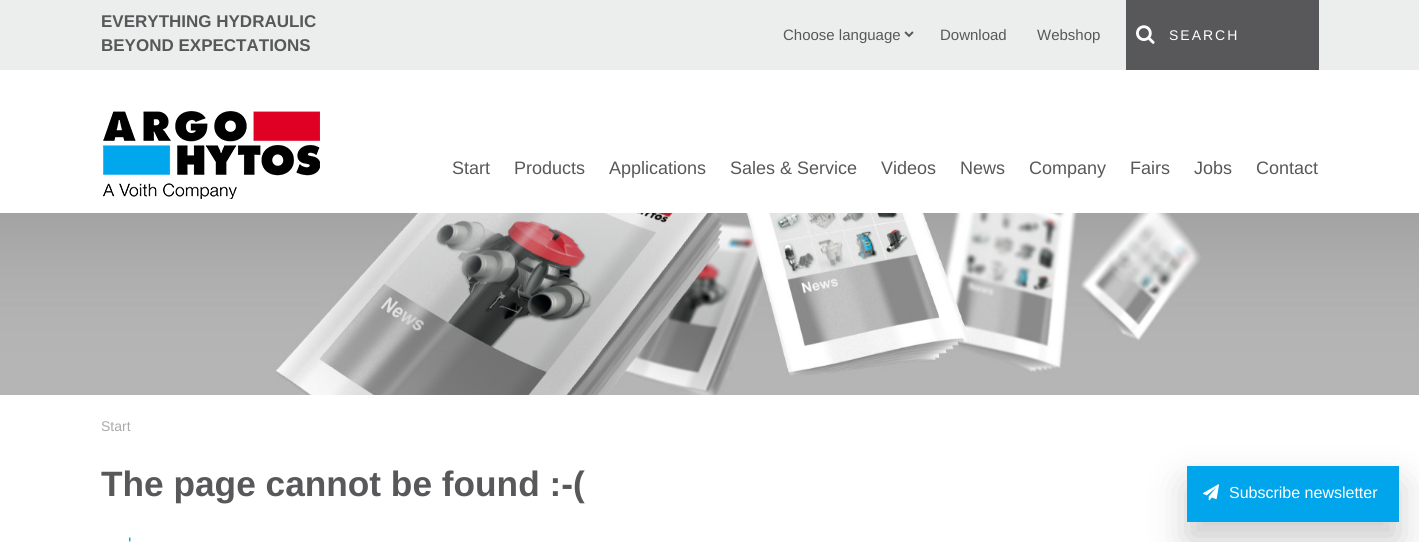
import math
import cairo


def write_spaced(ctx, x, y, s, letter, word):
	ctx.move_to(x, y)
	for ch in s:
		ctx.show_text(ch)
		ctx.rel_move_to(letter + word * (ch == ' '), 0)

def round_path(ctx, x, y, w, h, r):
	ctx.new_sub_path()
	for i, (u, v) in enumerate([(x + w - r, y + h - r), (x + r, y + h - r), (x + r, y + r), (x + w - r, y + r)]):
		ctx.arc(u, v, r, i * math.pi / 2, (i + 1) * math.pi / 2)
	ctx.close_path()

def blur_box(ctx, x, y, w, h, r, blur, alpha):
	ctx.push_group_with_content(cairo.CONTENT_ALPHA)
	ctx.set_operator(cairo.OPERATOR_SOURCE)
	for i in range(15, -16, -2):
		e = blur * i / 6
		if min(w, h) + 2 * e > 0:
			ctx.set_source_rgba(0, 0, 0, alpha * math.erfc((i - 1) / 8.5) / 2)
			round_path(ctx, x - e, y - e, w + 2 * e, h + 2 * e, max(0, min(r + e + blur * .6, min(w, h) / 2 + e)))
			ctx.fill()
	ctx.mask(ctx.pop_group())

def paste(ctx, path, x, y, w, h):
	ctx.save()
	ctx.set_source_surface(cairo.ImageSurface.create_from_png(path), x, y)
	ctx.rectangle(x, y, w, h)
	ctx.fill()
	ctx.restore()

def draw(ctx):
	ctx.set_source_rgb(1, 1, 1)
	ctx.paint()
	ctx.set_source_rgb(0.925, 0.929, 0.929)
	ctx.rectangle(0, 0, 1419, 70)
	ctx.fill()
	ctx.select_font_face('Liberation Sans', cairo.FONT_SLANT_NORMAL, cairo.FONT_WEIGHT_BOLD)
	ctx.set_font_size(17)
	ctx.set_source_rgb(0.345, 0.345, 0.353)
	ctx.move_to(101, 27)
	ctx.show_text('EVERYTHING HYDRAULIC')
	ctx.move_to(101, 51)
	ctx.show_text('BEYOND EXPECTATIONS')
	ctx.select_font_face('Liberation Sans')
	ctx.set_font_size(15)
	ctx.move_to(783, 40)
	ctx.show_text('Choose language')
	paste(ctx, 'media/1.png', 904, 31, 10, 7)
	ctx.move_to(940, 40)
	ctx.show_text('Download')
	ctx.move_to(1037, 40)
	ctx.show_text('Webshop')
	ctx.rectangle(1126, 0, 193, 70)
	ctx.fill()
	paste(ctx, 'media/2.png', 1136, 25, 19, 19)
	ctx.set_font_size(14)
	ctx.set_source_rgb(1, 1, 1)
	write_spaced(ctx, 1169, 40, 'SEARCH', 2, 0)
	paste(ctx, 'media/3.png', 103, 111, 217, 88)
	ctx.set_font_size(18)
	ctx.set_source_rgb(0.345, 0.345, 0.353)
	for x, y, s in [
		(452, 174, 'Start'),
		(514, 174, 'Products'),
		(609, 174, 'Applications'),
		(730, 174, 'Sales & Service'),
		(881, 174, 'Videos'),
		(960, 174, 'News'),
		(1029, 174, 'Company'),
		(1130, 174, 'Fairs'),
		(1194, 174, 'Jobs'),
		(1256, 174, 'Contact'),
	]:
		ctx.move_to(x, y)
		ctx.show_text(s)
	paste(ctx, 'media/4.png', 0, 213, 1419, 182)
	ctx.set_font_size(14)
	ctx.set_source_rgb(0.667, 0.667, 0.667)
	ctx.move_to(101, 431)
	ctx.show_text('Start')
	ctx.select_font_face('Liberation Sans', cairo.FONT_SLANT_NORMAL, cairo.FONT_WEIGHT_BOLD)
	ctx.set_font_size(35.25)
	ctx.set_source_rgb(0.345, 0.345, 0.353)
	ctx.move_to(101, 496)
	ctx.show_text('The page cannot be found :-(')
	ctx.select_font_face('Liberation Sans')
	ctx.set_font_size(18)
	ctx.set_source_rgb(0, 0.647, 0.922)
	ctx.move_to(128, 550)
	ctx.show_text('\'')
	ctx.set_source_rgb(0, 0, 0)
	blur_box(ctx, 1187, 485, 212, 56, 0, 19, 0.2)
	ctx.set_source_rgb(0, 0.647, 0.922)
	ctx.rectangle(1187, 466, 212, 56)
	ctx.fill()
	paste(ctx, 'media/5.png', 1203, 484, 16, 17)
	ctx.set_font_size(16)
	ctx.set_source_rgb(1, 1, 1)
	ctx.move_to(1229, 498)
	ctx.show_text('Subscribe newsletter')


surface = cairo.ImageSurface(cairo.FORMAT_RGB24, 1419, 542)
ctx = cairo.Context(surface)
options = cairo.FontOptions()
options.set_hint_metrics(cairo.HINT_METRICS_OFF)
options.set_hint_style(cairo.HINT_STYLE_NONE)
ctx.set_font_options(options)
ctx.set_miter_limit(4)
draw(ctx)
surface.write_to_png('image.png')
